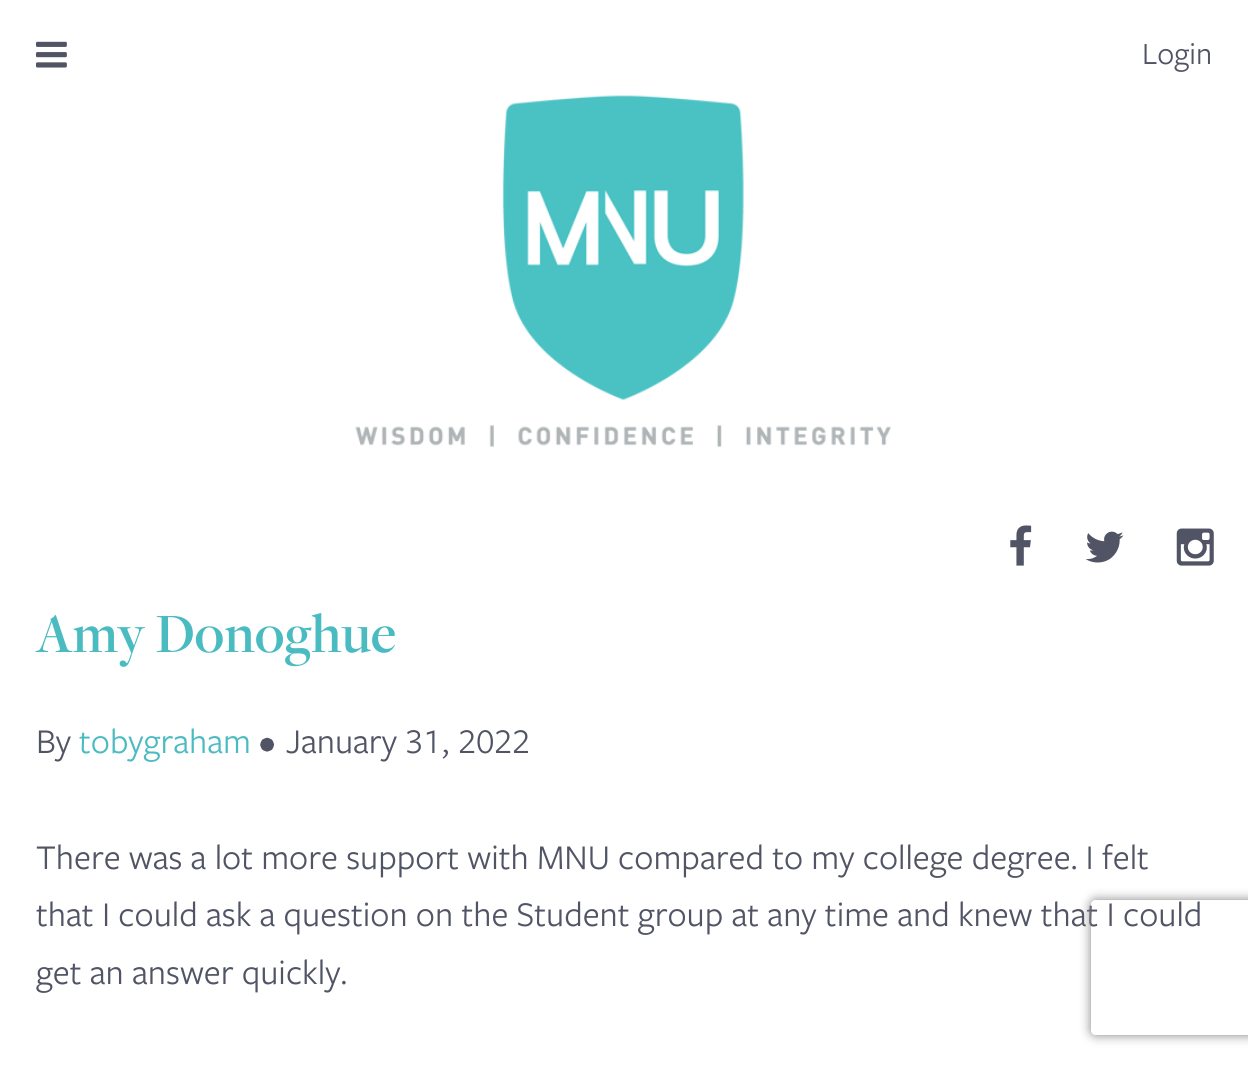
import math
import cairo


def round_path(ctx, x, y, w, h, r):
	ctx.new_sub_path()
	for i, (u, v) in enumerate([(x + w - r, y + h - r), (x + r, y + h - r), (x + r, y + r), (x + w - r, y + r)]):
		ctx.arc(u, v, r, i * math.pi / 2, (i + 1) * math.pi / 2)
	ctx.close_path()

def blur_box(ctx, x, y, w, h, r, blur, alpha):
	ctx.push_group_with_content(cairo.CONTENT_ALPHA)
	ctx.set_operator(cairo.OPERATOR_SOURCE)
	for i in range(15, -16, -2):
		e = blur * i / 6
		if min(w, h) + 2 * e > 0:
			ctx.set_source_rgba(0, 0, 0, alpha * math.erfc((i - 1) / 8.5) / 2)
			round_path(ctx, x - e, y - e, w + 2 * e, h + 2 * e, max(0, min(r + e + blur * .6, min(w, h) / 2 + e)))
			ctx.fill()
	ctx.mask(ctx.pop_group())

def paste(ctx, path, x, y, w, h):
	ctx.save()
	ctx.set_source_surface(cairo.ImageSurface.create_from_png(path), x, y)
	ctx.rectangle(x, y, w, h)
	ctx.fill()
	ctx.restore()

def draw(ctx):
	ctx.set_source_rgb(1, 1, 1)
	ctx.paint()
	paste(ctx, 'media/1.png', 36, 41, 31, 27)
	ctx.select_font_face('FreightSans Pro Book')
	ctx.set_font_size(32)
	ctx.set_source_rgb(0.318, 0.329, 0.392)
	ctx.move_to(1142, 64)
	ctx.show_text('Login')
	paste(ctx, 'media/2.png', 355, 95, 536, 352)
	paste(ctx, 'media/3.png', 1010, 525, 22, 41)
	paste(ctx, 'media/4.png', 1085, 531, 39, 32)
	paste(ctx, 'media/5.png', 1176, 528, 38, 38)
	ctx.select_font_face('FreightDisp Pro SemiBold')
	ctx.set_font_size(57.5)
	ctx.set_source_rgb(0.29, 0.733, 0.757)
	ctx.move_to(36, 652)
	ctx.show_text('Amy Donoghue')
	ctx.select_font_face('FreightSans Pro Book')
	ctx.set_font_size(36)
	ctx.set_source_rgb(0.318, 0.329, 0.392)
	ctx.move_to(36, 753)
	ctx.show_text('By')
	ctx.set_source_rgb(0.29, 0.733, 0.757)
	ctx.move_to(79, 753)
	ctx.show_text('tobygraham')
	ctx.set_source_rgb(0.318, 0.329, 0.392)
	ctx.move_to(259, 753)
	ctx.show_text('•')
	ctx.select_font_face('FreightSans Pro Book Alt')
	ctx.move_to(286, 753)
	ctx.show_text('January 31, 2022')
	ctx.select_font_face('FreightSans Pro Book')
	for x, y, s in [
		(36, 869, 'There was a lot more support with MNU compared to my college degree. I felt'),
		(36, 926, 'that I could ask a question on the Student group at any time and knew that I could'),
		(36, 984, 'get an answer quickly.'),
	]:
		ctx.move_to(x, y)
		ctx.show_text(s)
	ctx.save()
	ctx.set_fill_rule(cairo.FILL_RULE_EVEN_ODD)
	ctx.new_path()
	ctx.move_to(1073, 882)
	ctx.line_to(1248, 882)
	ctx.line_to(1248, 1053)
	ctx.line_to(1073, 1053)
	ctx.close_path()
	ctx.move_to(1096, 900)
	ctx.line_to(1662, 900)
	ctx.curve_to(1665, 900, 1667, 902, 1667, 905)
	ctx.line_to(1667, 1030)
	ctx.curve_to(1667, 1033, 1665, 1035, 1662, 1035)
	ctx.line_to(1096, 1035)
	ctx.curve_to(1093, 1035, 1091, 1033, 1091, 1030)
	ctx.line_to(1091, 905)
	ctx.curve_to(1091, 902, 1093, 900, 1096, 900)
	ctx.close_path()
	ctx.clip()
	ctx.set_source_rgb(0.502, 0.502, 0.502)
	blur_box(ctx, 1091, 900, 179, 135, 5, 5.5, 1)
	ctx.restore()


surface = cairo.ImageSurface(cairo.FORMAT_RGB24, 1248, 1065)
ctx = cairo.Context(surface)
options = cairo.FontOptions()
options.set_hint_metrics(cairo.HINT_METRICS_OFF)
options.set_hint_style(cairo.HINT_STYLE_NONE)
ctx.set_font_options(options)
ctx.set_miter_limit(4)
draw(ctx)
surface.write_to_png('image.png')
